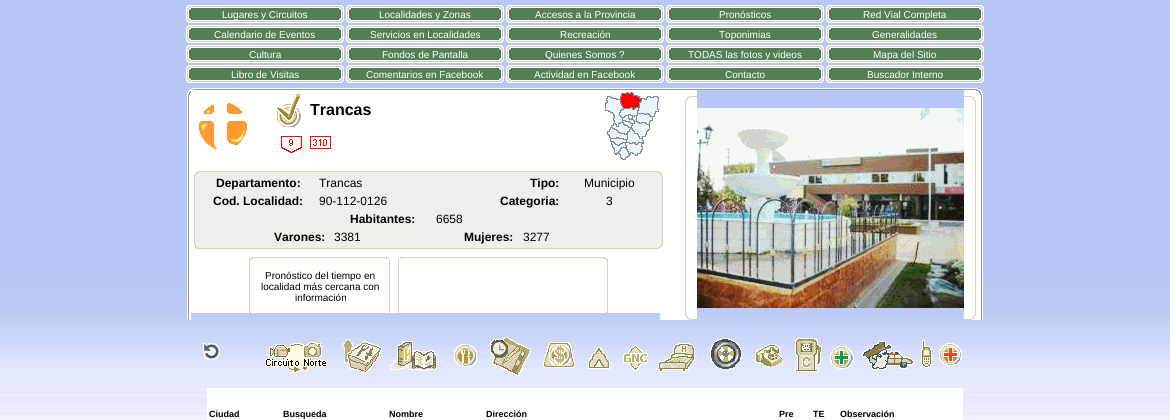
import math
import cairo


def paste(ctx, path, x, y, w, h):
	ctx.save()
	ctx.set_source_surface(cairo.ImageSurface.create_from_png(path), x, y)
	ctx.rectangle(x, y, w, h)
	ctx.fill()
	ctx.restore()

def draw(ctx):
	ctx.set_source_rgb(1, 1, 1)
	ctx.paint()
	paste(ctx, 'media/1.png', 0, 0, 1170, 420)
	paste(ctx, 'media/2.png', 186, 5, 158, 18)
	ctx.select_font_face('Liberation Sans')
	ctx.set_font_size(10)
	ctx.set_source_rgb(1, 1, 1)
	ctx.move_to(222, 18)
	ctx.show_text('Lugares y Circuitos')
	paste(ctx, 'media/2.png', 346, 5, 158, 18)
	ctx.move_to(379, 18)
	ctx.show_text('Localidades y Zonas')
	paste(ctx, 'media/2.png', 506, 5, 158, 18)
	ctx.move_to(535, 18)
	ctx.show_text('Accesos a la Provincia')
	paste(ctx, 'media/2.png', 666, 5, 158, 18)
	ctx.move_to(719, 18)
	ctx.show_text('Pronósticos')
	paste(ctx, 'media/2.png', 826, 5, 158, 18)
	ctx.move_to(863, 18)
	ctx.show_text('Red Vial Completa')
	paste(ctx, 'media/2.png', 186, 25, 158, 18)
	ctx.move_to(214, 38)
	ctx.show_text('Calendario de Eventos')
	paste(ctx, 'media/2.png', 346, 25, 158, 18)
	ctx.move_to(370, 38)
	ctx.show_text('Servicios en Localidades')
	paste(ctx, 'media/2.png', 506, 25, 158, 18)
	ctx.move_to(560, 38)
	ctx.show_text('Recreación')
	paste(ctx, 'media/2.png', 666, 25, 158, 18)
	ctx.move_to(719, 38)
	ctx.show_text('Toponimias')
	paste(ctx, 'media/2.png', 826, 25, 158, 18)
	ctx.move_to(872, 38)
	ctx.show_text('Generalidades')
	paste(ctx, 'media/2.png', 186, 45, 158, 18)
	ctx.move_to(249, 58)
	ctx.show_text('Cultura')
	paste(ctx, 'media/2.png', 346, 45, 158, 18)
	ctx.move_to(382, 58)
	ctx.show_text('Fondos de Pantalla')
	paste(ctx, 'media/2.png', 506, 45, 158, 18)
	ctx.move_to(545, 58)
	ctx.show_text('Quienes Somos ?')
	paste(ctx, 'media/2.png', 666, 45, 158, 18)
	ctx.move_to(688, 58)
	ctx.show_text('TODAS las fotos y videos')
	paste(ctx, 'media/2.png', 826, 45, 158, 18)
	ctx.move_to(873, 58)
	ctx.show_text('Mapa del Sitio')
	paste(ctx, 'media/2.png', 186, 65, 158, 18)
	ctx.move_to(231, 78)
	ctx.show_text('Libro de Visitas')
	paste(ctx, 'media/2.png', 346, 65, 158, 18)
	ctx.move_to(366, 78)
	ctx.show_text('Comentarios en Facebook')
	paste(ctx, 'media/2.png', 506, 65, 158, 18)
	ctx.move_to(534, 78)
	ctx.show_text('Actividad en Facebook')
	paste(ctx, 'media/2.png', 666, 65, 158, 18)
	ctx.move_to(725, 78)
	ctx.show_text('Contacto')
	paste(ctx, 'media/2.png', 826, 65, 158, 18)
	ctx.move_to(867, 78)
	ctx.show_text('Buscador Interno')
	paste(ctx, 'media/3.png', 190, 88, 790, 2)
	paste(ctx, 'media/4.png', 187, 90, 4, 230)
	ctx.rectangle(191, 90, 64, 71)
	ctx.fill()
	paste(ctx, 'media/5.png', 199, 103, 48, 46)
	paste(ctx, 'media/6.png', 255, 90, 55, 40)
	ctx.rectangle(310, 90, 294, 40)
	ctx.fill()
	ctx.select_font_face('Liberation Sans', cairo.FONT_SLANT_NORMAL, cairo.FONT_WEIGHT_BOLD)
	ctx.set_font_size(16)
	ctx.set_source_rgb(0, 0, 0)
	ctx.move_to(310, 115)
	ctx.show_text('Trancas')
	ctx.set_source_rgb(1, 1, 1)
	ctx.rectangle(255, 130, 349, 31)
	ctx.fill()
	paste(ctx, 'media/7.png', 281, 136, 50, 17)
	paste(ctx, 'media/8.png', 604, 90, 56, 71)
	paste(ctx, 'media/9.png', 621, 93, 20, 16)
	paste(ctx, 'media/10.png', 191, 161, 469, 13)
	paste(ctx, 'media/11.png', 191, 174, 6, 18)
	ctx.set_source_rgb(0.933, 0.937, 0.922)
	ctx.rectangle(197, 174, 463, 18)
	ctx.fill()
	ctx.set_font_size(12)
	ctx.set_source_rgb(0, 0, 0)
	ctx.move_to(216, 187)
	ctx.show_text('Departamento:')
	ctx.select_font_face('Liberation Sans')
	ctx.move_to(319, 187)
	ctx.show_text('Trancas')
	ctx.select_font_face('Liberation Sans', cairo.FONT_SLANT_NORMAL, cairo.FONT_WEIGHT_BOLD)
	ctx.move_to(530, 187)
	ctx.show_text('Tipo:')
	ctx.select_font_face('Liberation Sans')
	ctx.move_to(584, 187)
	ctx.show_text('Municipio')
	paste(ctx, 'media/12.png', 191, 192, 6, 18)
	ctx.set_source_rgb(0.933, 0.937, 0.922)
	ctx.rectangle(197, 192, 463, 18)
	ctx.fill()
	ctx.select_font_face('Liberation Sans', cairo.FONT_SLANT_NORMAL, cairo.FONT_WEIGHT_BOLD)
	ctx.set_source_rgb(0, 0, 0)
	ctx.move_to(213, 205)
	ctx.show_text('Cod. Localidad:')
	ctx.select_font_face('Liberation Sans')
	ctx.move_to(319, 205)
	ctx.show_text('90-112-0126')
	ctx.select_font_face('Liberation Sans', cairo.FONT_SLANT_NORMAL, cairo.FONT_WEIGHT_BOLD)
	ctx.move_to(500, 205)
	ctx.show_text('Categoria:')
	ctx.select_font_face('Liberation Sans')
	ctx.move_to(606, 205)
	ctx.show_text('3')
	paste(ctx, 'media/13.png', 191, 210, 224, 18)
	ctx.select_font_face('Liberation Sans', cairo.FONT_SLANT_NORMAL, cairo.FONT_WEIGHT_BOLD)
	ctx.move_to(350, 223)
	ctx.show_text('Habitantes:')
	ctx.set_source_rgb(0.933, 0.937, 0.922)
	ctx.rectangle(415, 210, 245, 18)
	ctx.fill()
	ctx.select_font_face('Liberation Sans')
	ctx.set_source_rgb(0, 0, 0)
	ctx.move_to(436, 223)
	ctx.show_text('6658')
	paste(ctx, 'media/14.png', 191, 228, 74, 18)
	ctx.set_source_rgb(0.933, 0.937, 0.922)
	ctx.rectangle(265, 228, 395, 18)
	ctx.fill()
	ctx.select_font_face('Liberation Sans', cairo.FONT_SLANT_NORMAL, cairo.FONT_WEIGHT_BOLD)
	ctx.set_source_rgb(0, 0, 0)
	ctx.move_to(274, 241)
	ctx.show_text('Varones:')
	ctx.select_font_face('Liberation Sans')
	ctx.move_to(334, 241)
	ctx.show_text('3381')
	ctx.select_font_face('Liberation Sans', cairo.FONT_SLANT_NORMAL, cairo.FONT_WEIGHT_BOLD)
	ctx.move_to(464, 241)
	ctx.show_text('Mujeres:')
	ctx.select_font_face('Liberation Sans')
	ctx.move_to(523, 241)
	ctx.show_text('3277')
	paste(ctx, 'media/15.png', 191, 246, 469, 13)
	paste(ctx, 'media/16.png', 191, 259, 68, 54)
	ctx.set_source_rgb(1, 1, 1)
	ctx.rectangle(259, 259, 123, 54)
	ctx.fill()
	ctx.set_font_size(10)
	ctx.set_source_rgb(0, 0, 0)
	for x, y, s in [
		(265, 279, 'Pronóstico del tiempo en'),
		(261, 290, 'localidad más cercana con'),
		(295, 301, 'información'),
	]:
		ctx.move_to(x, y)
		ctx.show_text(s)
	paste(ctx, 'media/17.png', 382, 259, 21, 54)
	ctx.set_source_rgb(1, 1, 1)
	ctx.rectangle(403, 259, 202, 54)
	ctx.fill()
	paste(ctx, 'media/18.png', 605, 259, 55, 54)
	paste(ctx, 'media/19.png', 660, 90, 37, 230)
	paste(ctx, 'media/20.png', 697, 108, 267, 200)
	paste(ctx, 'media/21.png', 964, 90, 19, 230)
	paste(ctx, 'media/22.png', 203, 343, 17, 17)
	paste(ctx, 'media/23.png', 230, 337, 732, 39)
	ctx.rectangle(207, 388, 756, 32)
	ctx.fill()
	ctx.select_font_face('Liberation Sans', cairo.FONT_SLANT_NORMAL, cairo.FONT_WEIGHT_BOLD)
	ctx.set_font_size(9)
	ctx.set_source_rgb(0, 0, 0)
	for x, y, s in [
		(209, 417, 'Ciudad'),
		(283, 417, 'Busqueda'),
		(389, 417, 'Nombre'),
		(486, 417, 'Dirección'),
		(779, 417, 'Pre'),
		(813, 417, 'TE'),
		(840, 417, 'Observación'),
	]:
		ctx.move_to(x, y)
		ctx.show_text(s)


surface = cairo.ImageSurface(cairo.FORMAT_RGB24, 1170, 420)
ctx = cairo.Context(surface)
options = cairo.FontOptions()
options.set_hint_metrics(cairo.HINT_METRICS_OFF)
options.set_hint_style(cairo.HINT_STYLE_NONE)
ctx.set_font_options(options)
ctx.set_miter_limit(4)
draw(ctx)
surface.write_to_png('image.png')
